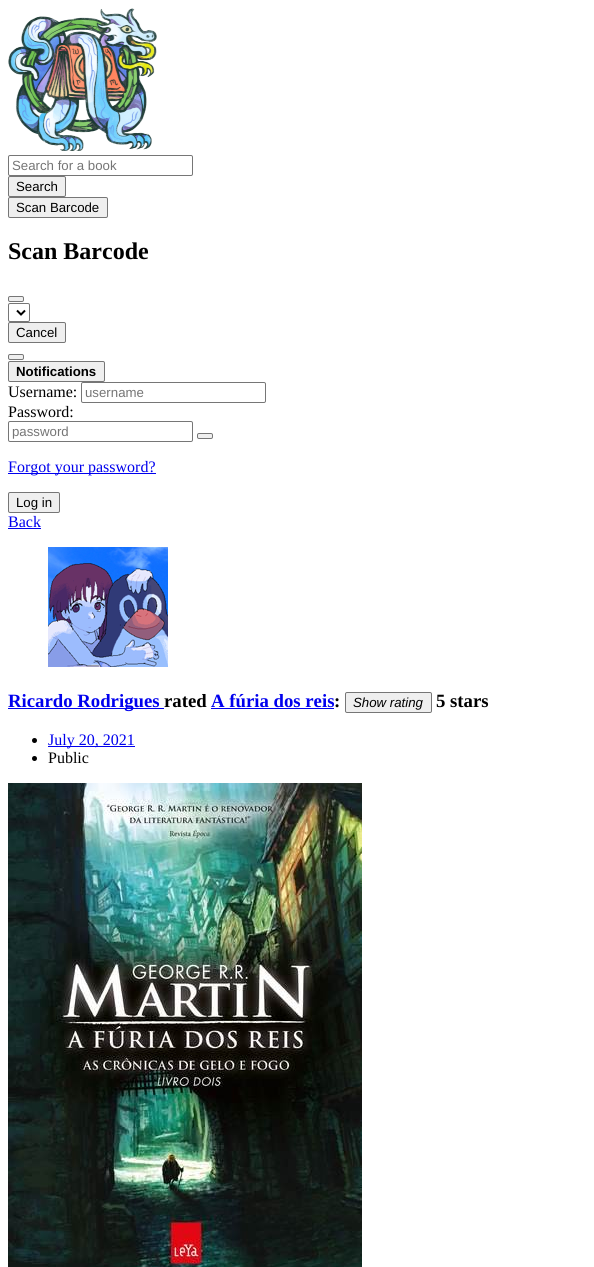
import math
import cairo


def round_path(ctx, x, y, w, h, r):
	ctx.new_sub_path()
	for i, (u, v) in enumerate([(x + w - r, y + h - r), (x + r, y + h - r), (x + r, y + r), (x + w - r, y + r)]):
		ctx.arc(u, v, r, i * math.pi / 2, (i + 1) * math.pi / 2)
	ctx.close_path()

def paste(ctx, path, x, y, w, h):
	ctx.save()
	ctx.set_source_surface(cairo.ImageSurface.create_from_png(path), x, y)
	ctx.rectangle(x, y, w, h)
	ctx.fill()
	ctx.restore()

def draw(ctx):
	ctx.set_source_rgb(1, 1, 1)
	ctx.paint()
	paste(ctx, 'media/1.png', 8, 8, 149, 143)
	round_path(ctx, 8.5, 155.5, 184, 20, 1.5)
	ctx.set_source_rgb(0.463, 0.463, 0.463)
	ctx.set_line_width(1)
	ctx.stroke()
	ctx.select_font_face('Liberation Sans')
	ctx.set_font_size(13.25)
	ctx.set_source_rgb(0.459, 0.459, 0.459)
	ctx.move_to(12, 170)
	ctx.show_text('Search for a book')
	ctx.set_source_rgb(0.937, 0.937, 0.937)
	round_path(ctx, 8.5, 176.5, 57, 20, 1.5)
	ctx.fill_preserve()
	ctx.set_source_rgb(0.463, 0.463, 0.463)
	ctx.stroke()
	ctx.set_source_rgb(0, 0, 0)
	ctx.move_to(16, 191)
	ctx.show_text('Search')
	ctx.set_source_rgb(0.937, 0.937, 0.937)
	round_path(ctx, 8.5, 197.5, 99, 20, 1.5)
	ctx.fill_preserve()
	ctx.set_source_rgb(0.463, 0.463, 0.463)
	ctx.stroke()
	ctx.set_source_rgb(0, 0, 0)
	ctx.move_to(16, 212)
	ctx.show_text('Scan Barcode')
	ctx.select_font_face('Liberation Serif', cairo.FONT_SLANT_NORMAL, cairo.FONT_WEIGHT_BOLD)
	ctx.set_font_size(24)
	ctx.move_to(8, 259)
	ctx.show_text('Scan Barcode')
	ctx.set_source_rgb(0.937, 0.937, 0.937)
	round_path(ctx, 8.5, 296.5, 15, 5, 1.5)
	ctx.fill_preserve()
	ctx.set_source_rgb(0.463, 0.463, 0.463)
	ctx.stroke()
	round_path(ctx, 8.5, 303.5, 21, 18, 1.5)
	ctx.stroke()
	ctx.new_path()
	ctx.move_to(17, 310.5)
	ctx.line_to(21, 314.5)
	ctx.line_to(25, 310.5)
	ctx.set_source_rgb(0, 0, 0)
	ctx.set_line_width(2)
	ctx.stroke()
	ctx.set_source_rgb(0.937, 0.937, 0.937)
	round_path(ctx, 8.5, 322.5, 57, 20, 1.5)
	ctx.fill_preserve()
	ctx.set_source_rgb(0.463, 0.463, 0.463)
	ctx.set_line_width(1)
	ctx.stroke()
	ctx.select_font_face('Liberation Sans')
	ctx.set_font_size(13.25)
	ctx.set_source_rgb(0, 0, 0)
	ctx.move_to(16, 337)
	ctx.show_text('Cancel')
	ctx.set_source_rgb(0.937, 0.937, 0.937)
	round_path(ctx, 8.5, 354.5, 15, 5, 1.5)
	ctx.fill_preserve()
	ctx.set_source_rgb(0.463, 0.463, 0.463)
	ctx.stroke()
	ctx.set_source_rgb(0.937, 0.937, 0.937)
	round_path(ctx, 8.5, 361.5, 96, 20, 1.5)
	ctx.fill_preserve()
	ctx.set_source_rgb(0.463, 0.463, 0.463)
	ctx.stroke()
	ctx.select_font_face('Liberation Sans', cairo.FONT_SLANT_NORMAL, cairo.FONT_WEIGHT_BOLD)
	ctx.set_source_rgb(0, 0, 0)
	ctx.move_to(16, 376)
	ctx.show_text('Notifications')
	ctx.select_font_face('Liberation Serif')
	ctx.set_font_size(16)
	ctx.move_to(8, 397)
	ctx.show_text('Username:')
	round_path(ctx, 81.5, 382.5, 184, 20, 1.5)
	ctx.set_source_rgb(0.463, 0.463, 0.463)
	ctx.stroke()
	ctx.select_font_face('Liberation Sans')
	ctx.set_font_size(13.25)
	ctx.set_source_rgb(0.459, 0.459, 0.459)
	ctx.move_to(85, 397)
	ctx.show_text('username')
	ctx.select_font_face('Liberation Serif')
	ctx.set_font_size(16)
	ctx.set_source_rgb(0, 0, 0)
	ctx.move_to(8, 417)
	ctx.show_text('Password:')
	round_path(ctx, 8.5, 421.5, 184, 20, 1.5)
	ctx.set_source_rgb(0.463, 0.463, 0.463)
	ctx.stroke()
	ctx.select_font_face('Liberation Sans')
	ctx.set_font_size(13.25)
	ctx.set_source_rgb(0.459, 0.459, 0.459)
	ctx.move_to(12, 436)
	ctx.show_text('password')
	ctx.set_source_rgb(0.937, 0.937, 0.937)
	round_path(ctx, 197.5, 433.5, 15, 5, 1.5)
	ctx.fill_preserve()
	ctx.set_source_rgb(0.463, 0.463, 0.463)
	ctx.stroke()
	ctx.set_source_rgb(0, 0, 0.933)
	ctx.rectangle(8, 473, 148, 1)
	ctx.fill()
	ctx.select_font_face('Liberation Serif')
	ctx.set_font_size(16)
	ctx.move_to(8, 472)
	ctx.show_text('Forgot your password?')
	ctx.set_source_rgb(0.937, 0.937, 0.937)
	round_path(ctx, 8.5, 492.5, 51, 20, 1.5)
	ctx.fill_preserve()
	ctx.set_source_rgb(0.463, 0.463, 0.463)
	ctx.stroke()
	ctx.select_font_face('Liberation Sans')
	ctx.set_font_size(13.25)
	ctx.set_source_rgb(0, 0, 0)
	ctx.move_to(16, 507)
	ctx.show_text('Log in')
	ctx.select_font_face('Liberation Serif')
	ctx.set_font_size(16)
	ctx.set_source_rgb(0, 0, 0.933)
	ctx.move_to(8, 527)
	ctx.show_text('Back')
	ctx.rectangle(8, 528, 33, 1)
	ctx.fill()
	paste(ctx, 'media/2.png', 48, 547, 120, 120)
	ctx.rectangle(8, 708, 156, 1)
	ctx.fill()
	ctx.select_font_face('Liberation Serif', cairo.FONT_SLANT_NORMAL, cairo.FONT_WEIGHT_BOLD)
	ctx.set_font_size(18.75)
	ctx.move_to(8, 707)
	ctx.show_text('Ricardo Rodrigues')
	ctx.set_source_rgb(0, 0, 0)
	ctx.move_to(164, 707)
	ctx.show_text('rated')
	ctx.set_source_rgb(0, 0, 0.933)
	ctx.move_to(211, 707)
	ctx.show_text('A fúria dos reis')
	ctx.rectangle(211, 708, 123, 1)
	ctx.fill()
	ctx.set_source_rgb(0, 0, 0)
	ctx.move_to(334, 707)
	ctx.show_text(':')
	ctx.set_source_rgb(0.937, 0.937, 0.937)
	round_path(ctx, 345.5, 692.5, 86, 20, 1.5)
	ctx.fill_preserve()
	ctx.set_source_rgb(0.463, 0.463, 0.463)
	ctx.stroke()
	ctx.select_font_face('Liberation Sans', cairo.FONT_SLANT_ITALIC)
	ctx.set_font_size(13.25)
	ctx.set_source_rgb(0, 0, 0)
	ctx.move_to(353, 707)
	ctx.show_text('Show rating')
	ctx.select_font_face('Liberation Serif', cairo.FONT_SLANT_NORMAL, cairo.FONT_WEIGHT_BOLD)
	ctx.set_font_size(18.75)
	ctx.move_to(436, 707)
	ctx.show_text('5 stars')
	ctx.new_path()
	ctx.arc(34.5, 740.5, 2.5, 0, 2 * math.pi)
	ctx.fill()
	ctx.set_source_rgb(0, 0, 0.933)
	ctx.rectangle(48, 746, 87, 1)
	ctx.fill()
	ctx.select_font_face('Liberation Serif')
	ctx.set_font_size(16)
	ctx.move_to(48, 745)
	ctx.show_text('July 20, 2021')
	ctx.set_source_rgb(0, 0, 0)
	ctx.new_path()
	ctx.arc(34.5, 758.5, 2.5, 0, 2 * math.pi)
	ctx.fill()
	ctx.move_to(48, 763)
	ctx.show_text('Public')
	paste(ctx, 'media/3.png', 8, 783, 354, 484)


surface = cairo.ImageSurface(cairo.FORMAT_RGB24, 594, 1267)
ctx = cairo.Context(surface)
options = cairo.FontOptions()
options.set_hint_metrics(cairo.HINT_METRICS_OFF)
options.set_hint_style(cairo.HINT_STYLE_NONE)
ctx.set_font_options(options)
ctx.set_miter_limit(4)
draw(ctx)
surface.write_to_png('image.png')
